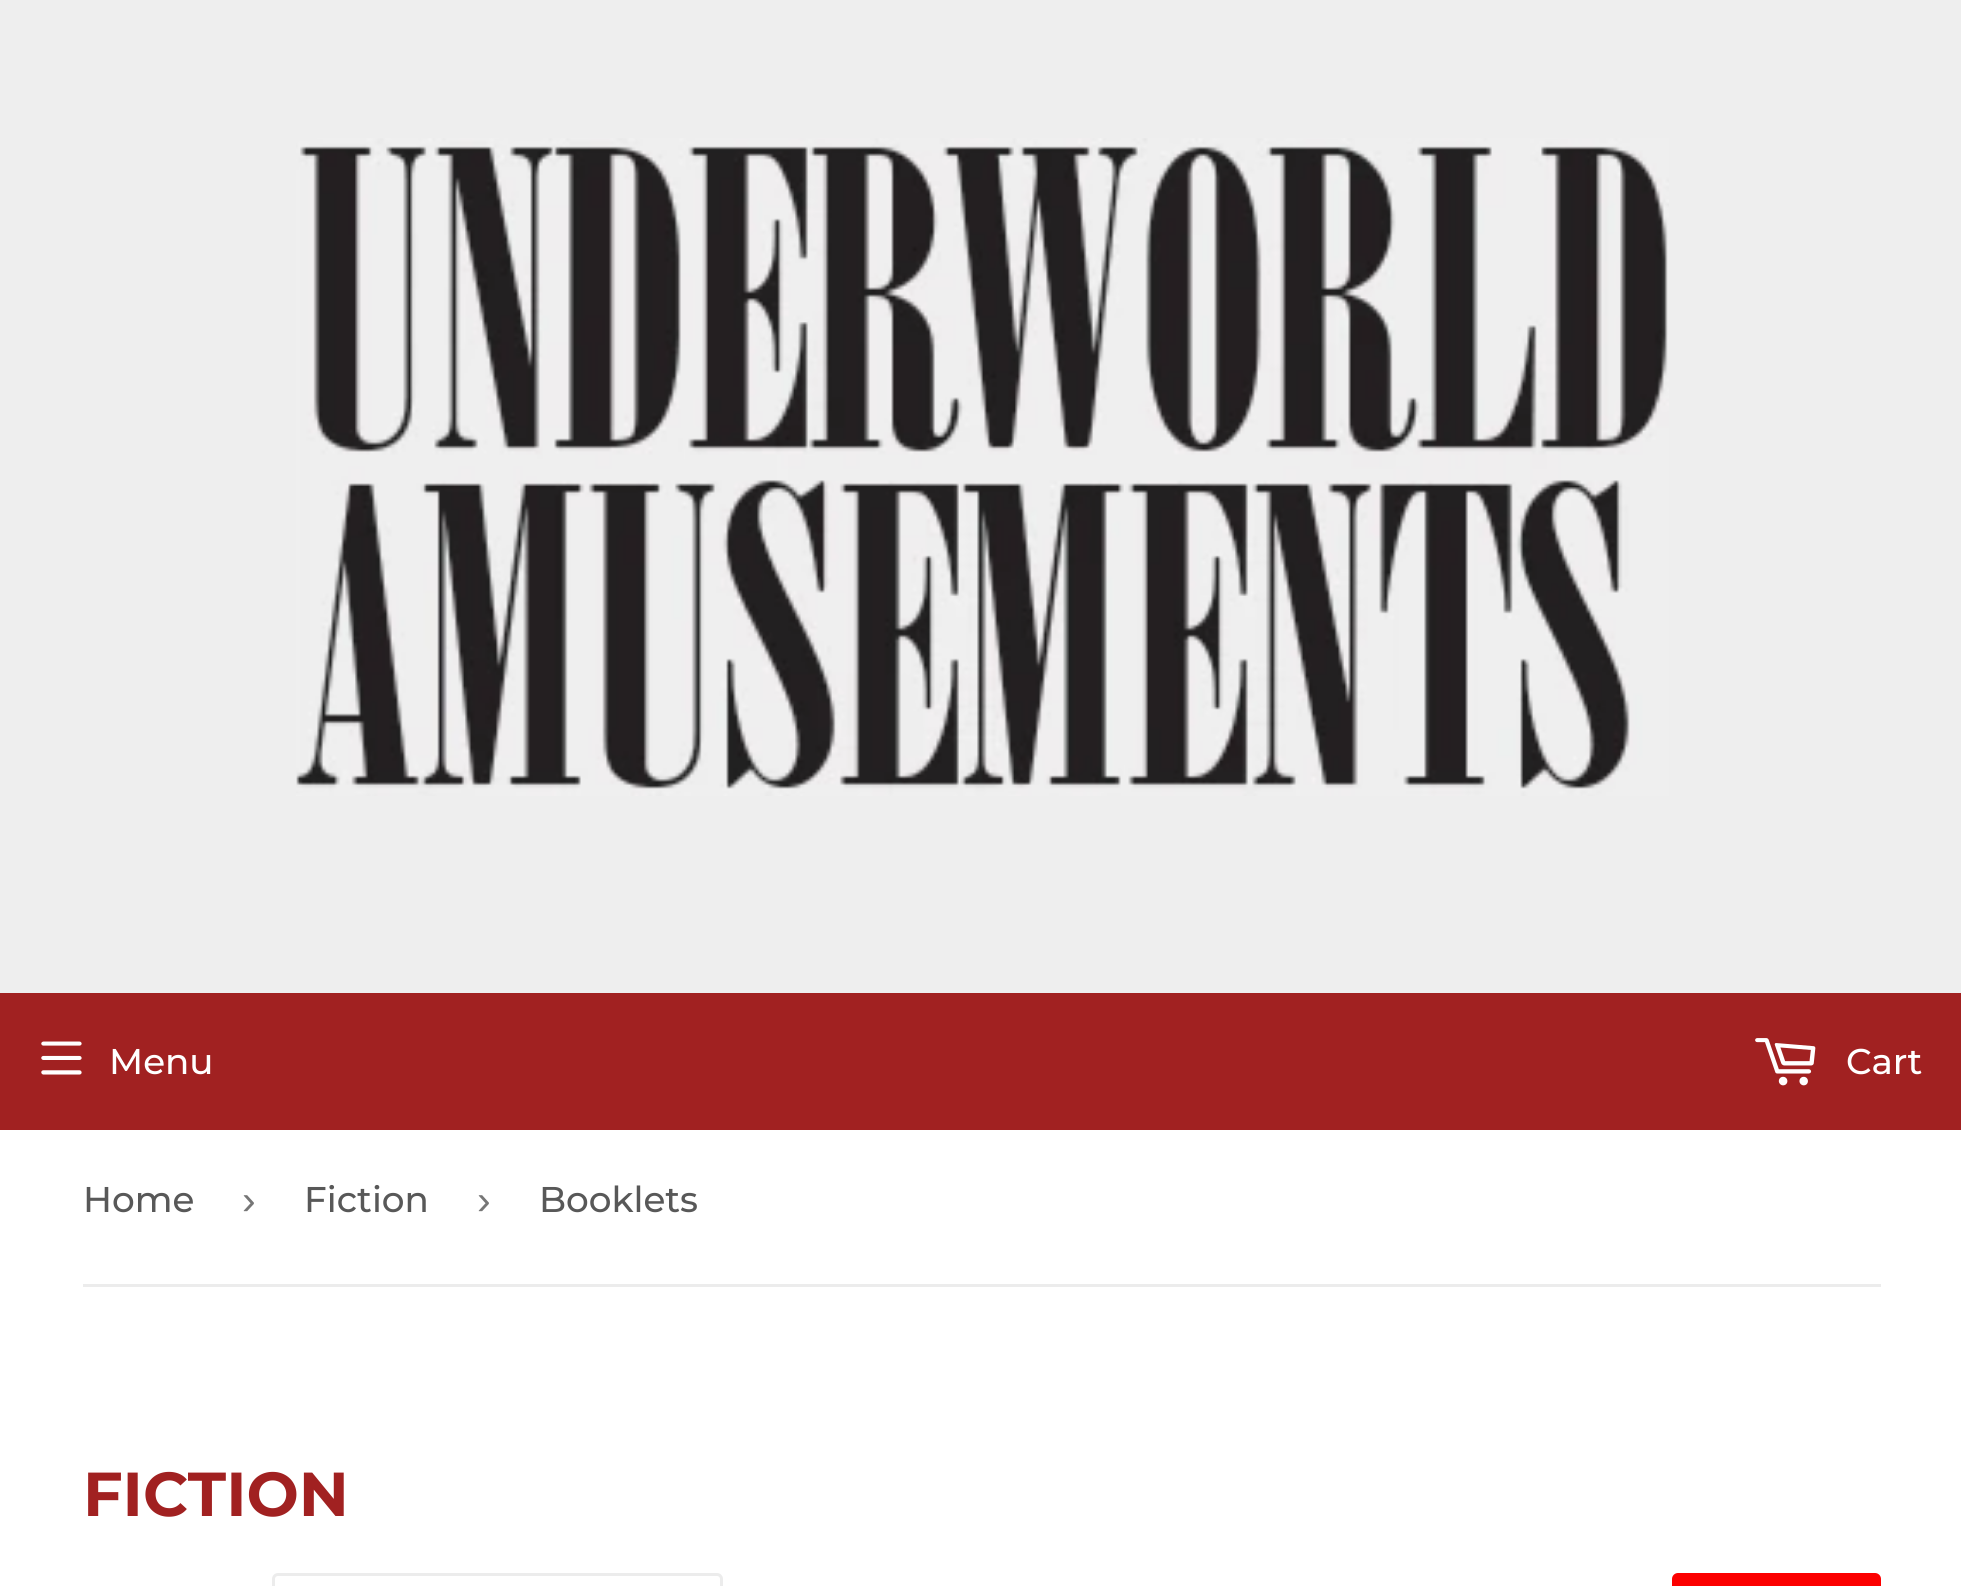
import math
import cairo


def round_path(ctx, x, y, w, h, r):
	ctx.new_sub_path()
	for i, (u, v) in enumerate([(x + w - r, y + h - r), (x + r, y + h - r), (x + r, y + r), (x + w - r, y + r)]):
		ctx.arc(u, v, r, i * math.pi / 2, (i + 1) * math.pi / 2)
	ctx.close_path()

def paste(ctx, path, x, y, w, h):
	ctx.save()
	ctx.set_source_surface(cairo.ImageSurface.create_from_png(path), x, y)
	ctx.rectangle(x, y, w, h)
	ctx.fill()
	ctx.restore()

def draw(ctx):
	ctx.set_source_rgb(1, 1, 1)
	ctx.paint()
	ctx.set_source_rgb(0.933, 0.933, 0.933)
	ctx.rectangle(0, 0, 1961, 993)
	ctx.fill()
	paste(ctx, 'media/1.png', 296, 138, 1373, 658)
	ctx.set_source_rgb(0.631, 0.129, 0.129)
	ctx.rectangle(0, 993, 1961, 137)
	ctx.fill()
	paste(ctx, 'media/2.png', 41, 1041, 41, 34)
	ctx.select_font_face('Montserrat Medium')
	ctx.set_font_size(35.75)
	ctx.set_source_rgb(1, 1, 1)
	ctx.move_to(109, 1074)
	ctx.show_text('Menu')
	paste(ctx, 'media/3.png', 1755, 1038, 61, 48)
	ctx.move_to(1846, 1074)
	ctx.show_text('Cart')
	ctx.set_source_rgb(0.925, 0.925, 0.925)
	ctx.rectangle(83, 1284, 1798, 3)
	ctx.fill()
	ctx.set_source_rgb(0.345, 0.345, 0.345)
	ctx.move_to(83, 1212)
	ctx.show_text('Home')
	ctx.select_font_face('Liberation Sans')
	ctx.set_font_size(41)
	ctx.set_source_rgb(0.463, 0.463, 0.463)
	ctx.move_to(242, 1214)
	ctx.show_text('›')
	ctx.select_font_face('Montserrat Medium')
	ctx.set_font_size(35.75)
	ctx.set_source_rgb(0.345, 0.345, 0.345)
	ctx.move_to(304, 1212)
	ctx.show_text('Fiction')
	ctx.select_font_face('Liberation Sans')
	ctx.set_font_size(41)
	ctx.set_source_rgb(0.463, 0.463, 0.463)
	ctx.move_to(477, 1214)
	ctx.show_text('›')
	ctx.select_font_face('Montserrat Medium')
	ctx.set_font_size(35.75)
	ctx.set_source_rgb(0.345, 0.345, 0.345)
	ctx.move_to(539, 1212)
	ctx.show_text('Booklets')
	ctx.select_font_face('Montserrat', cairo.FONT_SLANT_NORMAL, cairo.FONT_WEIGHT_BOLD)
	ctx.set_font_size(62)
	ctx.set_source_rgb(0.631, 0.129, 0.129)
	ctx.move_to(83, 1516)
	ctx.show_text('FICTION')
	round_path(ctx, 273.5, 1574.5, 448, 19, 4.5)
	ctx.set_source_rgb(0.925, 0.925, 0.925)
	ctx.set_line_width(3)
	ctx.stroke()
	ctx.set_source_rgb(0.988, 0, 0)
	round_path(ctx, 1672, 1573, 209, 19, 6)
	ctx.fill()


surface = cairo.ImageSurface(cairo.FORMAT_RGB24, 1961, 1586)
ctx = cairo.Context(surface)
options = cairo.FontOptions()
options.set_hint_metrics(cairo.HINT_METRICS_OFF)
options.set_hint_style(cairo.HINT_STYLE_NONE)
ctx.set_font_options(options)
ctx.set_miter_limit(4)
draw(ctx)
surface.write_to_png('image.png')
